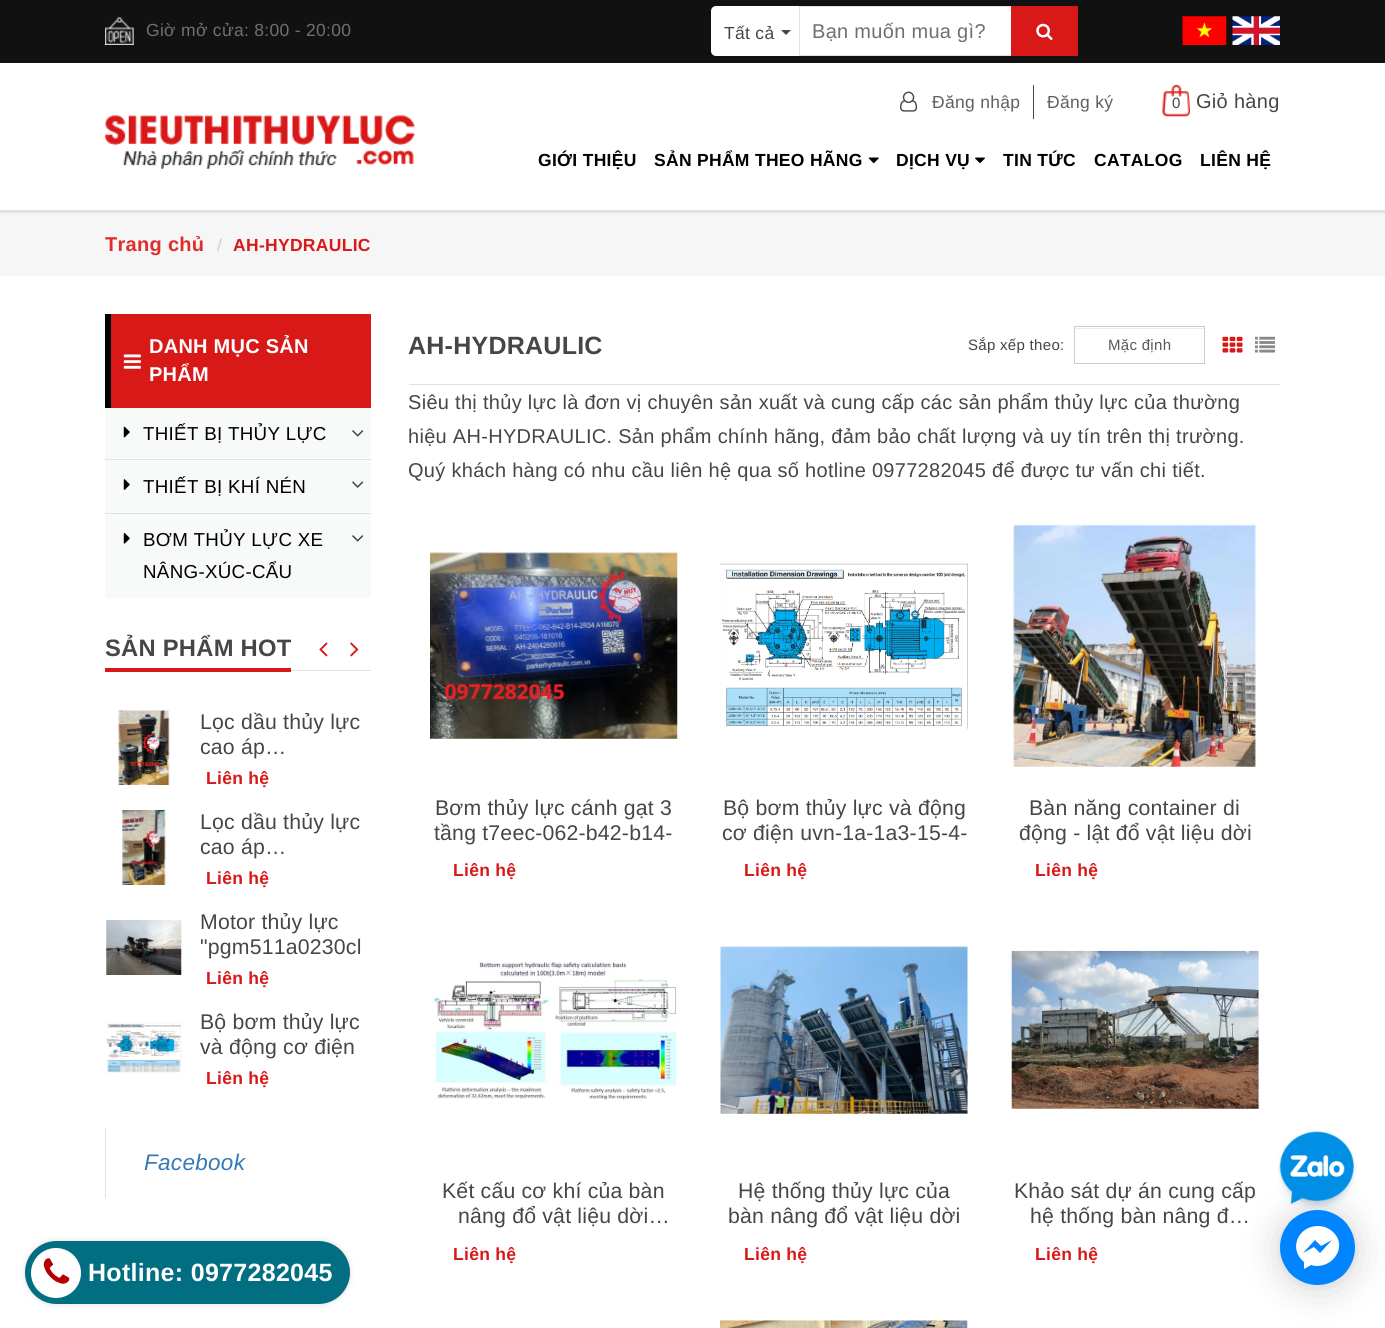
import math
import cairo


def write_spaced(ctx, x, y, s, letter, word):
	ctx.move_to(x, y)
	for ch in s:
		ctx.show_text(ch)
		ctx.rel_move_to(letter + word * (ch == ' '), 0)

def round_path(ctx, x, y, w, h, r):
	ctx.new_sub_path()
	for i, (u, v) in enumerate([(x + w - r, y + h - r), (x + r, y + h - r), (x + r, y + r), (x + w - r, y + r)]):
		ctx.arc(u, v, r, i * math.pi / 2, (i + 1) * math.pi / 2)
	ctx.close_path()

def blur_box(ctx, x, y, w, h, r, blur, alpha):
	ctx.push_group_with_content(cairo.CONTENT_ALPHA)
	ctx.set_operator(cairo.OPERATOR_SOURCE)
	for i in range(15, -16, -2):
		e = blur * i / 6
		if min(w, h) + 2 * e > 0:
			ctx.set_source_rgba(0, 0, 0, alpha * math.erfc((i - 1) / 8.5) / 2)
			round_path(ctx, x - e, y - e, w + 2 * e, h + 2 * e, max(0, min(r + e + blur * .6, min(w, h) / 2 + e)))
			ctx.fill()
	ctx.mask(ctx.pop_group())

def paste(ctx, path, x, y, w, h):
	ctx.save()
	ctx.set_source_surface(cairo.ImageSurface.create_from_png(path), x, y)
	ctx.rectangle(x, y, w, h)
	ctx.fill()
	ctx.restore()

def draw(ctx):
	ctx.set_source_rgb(1, 1, 1)
	ctx.paint()
	ctx.set_source_rgb(0.067, 0.067, 0.067)
	ctx.rectangle(0, 0, 1385, 63)
	ctx.fill()
	paste(ctx, 'media/1.png', 105, 17, 29, 28)
	ctx.select_font_face('Liberation Sans')
	ctx.set_font_size(17.5)
	ctx.set_source_rgb(0.439, 0.439, 0.439)
	write_spaced(ctx, 146, 36, 'Giờ mở cửa: 8:00 - 20:00', 0.3, 0)
	ctx.set_source_rgb(1, 1, 1)
	round_path(ctx, 711, 6, 367, 50, 5)
	ctx.fill()
	ctx.set_source_rgb(0.275, 0.275, 0.275)
	write_spaced(ctx, 724, 39, 'Tất cả', 0.3, 0)
	ctx.new_path()
	ctx.move_to(781, 30)
	ctx.line_to(791, 30)
	ctx.line_to(786, 35)
	ctx.close_path()
	ctx.fill()
	ctx.rectangle(799.5, 6.5, 213, 49)
	ctx.set_source_rgb(0.882, 0.882, 0.882)
	ctx.set_line_width(1)
	ctx.stroke()
	ctx.set_font_size(20)
	ctx.set_source_rgb(0.439, 0.439, 0.439)
	write_spaced(ctx, 812, 38, 'Bạn muốn mua gì?', 0.3, 0)
	ctx.set_source_rgb(0.851, 0.094, 0.094)
	ctx.rectangle(1011, 6, 67, 50)
	ctx.fill()
	paste(ctx, 'media/2.png', 1036, 23, 17, 17)
	paste(ctx, 'media/3.png', 1182, 16, 45, 29)
	paste(ctx, 'media/4.png', 1232, 16, 48, 29)
	ctx.set_source_rgb(0.882, 0.882, 0.882)
	ctx.rectangle(0, 210, 1385, 3)
	ctx.fill()
	paste(ctx, 'media/5.png', 105, 115, 310, 54)
	paste(ctx, 'media/6.png', 900, 91, 18, 21)
	ctx.set_font_size(17.5)
	ctx.set_source_rgb(0.376, 0.376, 0.376)
	write_spaced(ctx, 932, 108, 'Đăng nhập', 0.3, 0)
	ctx.set_source_rgb(0.275, 0.275, 0.275)
	ctx.rectangle(1033, 85, 1, 34)
	ctx.fill()
	ctx.set_source_rgb(0.376, 0.376, 0.376)
	write_spaced(ctx, 1047, 108, 'Đăng ký', 0.3, 0)
	paste(ctx, 'media/7.png', 1162, 85, 28, 32)
	ctx.set_font_size(20)
	ctx.set_source_rgb(0.275, 0.275, 0.275)
	write_spaced(ctx, 1196, 108, 'Giỏ hàng', 0.3, 0)
	ctx.set_font_size(15)
	write_spaced(ctx, 1172, 108, '0', 0.3, 0)
	ctx.select_font_face('Liberation Sans', cairo.FONT_SLANT_NORMAL, cairo.FONT_WEIGHT_BOLD)
	ctx.set_font_size(17.5)
	ctx.set_source_rgb(0, 0, 0)
	write_spaced(ctx, 538, 166, 'GIỚI THIỆU', 0.3, 0)
	write_spaced(ctx, 654, 166, 'SẢN PHẨM THEO HÃNG', 0.3, 0)
	paste(ctx, 'media/8.png', 868, 157, 11, 7)
	write_spaced(ctx, 896, 166, 'DỊCH VỤ', 0.3, 0)
	paste(ctx, 'media/9.png', 975, 157, 10, 6)
	for x, y, s in [
		(1003, 166, 'TIN TỨC'),
		(1094, 166, 'CATALOG'),
		(1200, 166, 'LIÊN HỆ'),
	]:
		write_spaced(ctx, x, y, s, 0.3, 0)
	ctx.set_source_rgb(0.961, 0.961, 0.961)
	ctx.rectangle(0, 213, 1385, 63)
	ctx.fill()
	ctx.set_font_size(20)
	ctx.set_source_rgb(0.867, 0.176, 0.176)
	write_spaced(ctx, 105, 251, 'Trang chủ', 0.3, 0)
	ctx.select_font_face('Liberation Sans')
	ctx.set_font_size(17.5)
	ctx.set_source_rgb(0.8, 0.8, 0.8)
	write_spaced(ctx, 217, 251, '/', 0.3, 0)
	ctx.select_font_face('Liberation Sans', cairo.FONT_SLANT_NORMAL, cairo.FONT_WEIGHT_BOLD)
	ctx.set_source_rgb(0.851, 0.094, 0.094)
	write_spaced(ctx, 233, 251, 'AH-HYDRAULIC', 0.3, 0)
	ctx.rectangle(111, 314, 260, 94)
	ctx.fill()
	ctx.set_source_rgb(0, 0, 0)
	ctx.rectangle(105, 314, 6, 94)
	ctx.fill()
	paste(ctx, 'media/10.png', 123, 354, 18, 15)
	ctx.set_font_size(20)
	ctx.set_source_rgb(1, 1, 1)
	write_spaced(ctx, 149, 353, 'DANH MỤC SẢN', 0.25, 0)
	write_spaced(ctx, 149, 381, 'PHẨM', 0.25, 0)
	ctx.set_source_rgb(0.969, 0.973, 0.976)
	ctx.rectangle(105, 408, 266, 51)
	ctx.fill()
	paste(ctx, 'media/11.png', 123, 426, 7, 12)
	ctx.select_font_face('Liberation Sans')
	ctx.set_font_size(18.75)
	ctx.set_source_rgb(0, 0, 0)
	write_spaced(ctx, 143, 440, 'THIẾT BỊ THỦY LỰC', 0.3, 0)
	paste(ctx, 'media/12.png', 352, 430, 12, 7)
	ctx.set_source_rgb(0.969, 0.973, 0.976)
	ctx.rectangle(105, 460, 266, 53)
	ctx.fill()
	ctx.set_source_rgb(0.882, 0.882, 0.882)
	ctx.rectangle(105, 459, 266, 1)
	ctx.fill()
	paste(ctx, 'media/13.png', 123, 479, 7, 11)
	ctx.set_source_rgb(0, 0, 0)
	write_spaced(ctx, 143, 493, 'THIẾT BỊ KHÍ NÉN', 0.3, 0)
	paste(ctx, 'media/14.png', 352, 481, 12, 7)
	ctx.set_source_rgb(0.969, 0.973, 0.976)
	ctx.rectangle(105, 514, 266, 84)
	ctx.fill()
	ctx.set_source_rgb(0.882, 0.882, 0.882)
	ctx.rectangle(105, 513, 266, 1)
	ctx.fill()
	paste(ctx, 'media/15.png', 123, 533, 7, 11)
	ctx.set_source_rgb(0, 0, 0)
	write_spaced(ctx, 143, 546, 'BƠM THỦY LỰC XE', 0.3, 0)
	write_spaced(ctx, 143, 578, 'NÂNG-XÚC-CẨU', 0.3, 0)
	paste(ctx, 'media/12.png', 352, 535, 12, 7)
	ctx.set_source_rgb(0.882, 0.882, 0.882)
	ctx.rectangle(291, 670, 80, 1)
	ctx.fill()
	ctx.select_font_face('Liberation Sans', cairo.FONT_SLANT_NORMAL, cairo.FONT_WEIGHT_BOLD)
	ctx.set_font_size(23.75)
	ctx.set_source_rgb(0.275, 0.275, 0.275)
	write_spaced(ctx, 105, 656, 'SẢN PHẨM HOT', 0.25, 0)
	ctx.set_source_rgb(0.851, 0.094, 0.094)
	ctx.rectangle(105, 668, 186, 4)
	ctx.fill()
	paste(ctx, 'media/16.png', 319, 642, 9, 15)
	paste(ctx, 'media/17.png', 350, 642, 9, 15)
	paste(ctx, 'media/18.png', 118, 710, 52, 75)
	ctx.select_font_face('Liberation Sans')
	ctx.set_font_size(21.25)
	ctx.set_source_rgb(0.275, 0.275, 0.275)
	write_spaced(ctx, 200, 729, 'Lọc dầu thủy lực', 0.2, 0)
	write_spaced(ctx, 200, 754, 'cao áp…', 0.2, 0)
	ctx.select_font_face('Liberation Sans', cairo.FONT_SLANT_NORMAL, cairo.FONT_WEIGHT_BOLD)
	ctx.set_font_size(17.5)
	ctx.set_source_rgb(0.851, 0.094, 0.094)
	write_spaced(ctx, 206, 784, 'Liên hệ', 0.3, 0)
	paste(ctx, 'media/19.png', 122, 810, 44, 75)
	ctx.select_font_face('Liberation Sans')
	ctx.set_font_size(21.25)
	ctx.set_source_rgb(0.275, 0.275, 0.275)
	write_spaced(ctx, 200, 829, 'Lọc dầu thủy lực', 0.2, 0)
	write_spaced(ctx, 200, 854, 'cao áp…', 0.2, 0)
	ctx.select_font_face('Liberation Sans', cairo.FONT_SLANT_NORMAL, cairo.FONT_WEIGHT_BOLD)
	ctx.set_font_size(17.5)
	ctx.set_source_rgb(0.851, 0.094, 0.094)
	write_spaced(ctx, 206, 884, 'Liên hệ', 0.3, 0)
	paste(ctx, 'media/20.png', 106, 920, 76, 55)
	ctx.select_font_face('Liberation Sans')
	ctx.set_font_size(21.25)
	ctx.set_source_rgb(0.275, 0.275, 0.275)
	write_spaced(ctx, 200, 929, 'Motor thủy lực', 0.2, 0)
	write_spaced(ctx, 200, 954, '"pgm511a0230cl', 0.2, 0)
	ctx.select_font_face('Liberation Sans', cairo.FONT_SLANT_NORMAL, cairo.FONT_WEIGHT_BOLD)
	ctx.set_font_size(17.5)
	ctx.set_source_rgb(0.851, 0.094, 0.094)
	write_spaced(ctx, 206, 984, 'Liên hệ', 0.3, 0)
	paste(ctx, 'media/21.png', 106, 1022, 76, 51)
	ctx.select_font_face('Liberation Sans')
	ctx.set_font_size(21.25)
	ctx.set_source_rgb(0.275, 0.275, 0.275)
	write_spaced(ctx, 200, 1029, 'Bộ bơm thủy lực', 0.2, 0)
	write_spaced(ctx, 200, 1054, 'và động cơ điện', 0.2, 0)
	ctx.select_font_face('Liberation Sans', cairo.FONT_SLANT_NORMAL, cairo.FONT_WEIGHT_BOLD)
	ctx.set_font_size(17.5)
	ctx.set_source_rgb(0.851, 0.094, 0.094)
	write_spaced(ctx, 206, 1084, 'Liên hệ', 0.3, 0)
	ctx.set_source_rgb(0.882, 0.882, 0.882)
	ctx.rectangle(105, 1128, 1, 70)
	ctx.fill()
	ctx.select_font_face('Liberation Sans', cairo.FONT_SLANT_ITALIC)
	ctx.set_font_size(22.5)
	ctx.set_source_rgb(0.2, 0.478, 0.718)
	write_spaced(ctx, 144, 1170, 'Facebook', 0.3, 0)
	ctx.set_source_rgb(0.882, 0.882, 0.882)
	ctx.rectangle(409, 384, 871, 1)
	ctx.fill()
	ctx.select_font_face('Liberation Sans', cairo.FONT_SLANT_NORMAL, cairo.FONT_WEIGHT_BOLD)
	ctx.set_font_size(25)
	ctx.set_source_rgb(0.275, 0.275, 0.275)
	write_spaced(ctx, 408, 354, 'AH-HYDRAULIC', 0.25, 0)
	ctx.select_font_face('Liberation Sans')
	ctx.set_font_size(15)
	write_spaced(ctx, 968, 350, 'Sắp xếp theo:', 0.3, 0)
	ctx.set_source_rgb(0.925, 0.925, 0.925)
	ctx.rectangle(1075, 328, 129, 1)
	ctx.fill()
	ctx.rectangle(1074.5, 326.5, 130, 37)
	ctx.set_source_rgb(0.8, 0.8, 0.8)
	ctx.stroke()
	ctx.set_source_rgb(0.333, 0.349, 0.361)
	write_spaced(ctx, 1108, 350, 'Mặc định', 0.3, 0)
	paste(ctx, 'media/22.png', 1222, 336, 21, 17)
	paste(ctx, 'media/23.png', 1255, 336, 20, 17)
	ctx.set_font_size(20)
	ctx.set_source_rgb(0.275, 0.275, 0.275)
	for x, y, s in [
		(408, 409, 'Siêu thị thủy lực là đơn vị chuyên sản xuất và cung cấp các sản phẩm thủy lực của thường'),
		(408, 443, 'hiệu AH-HYDRAULIC. Sản phẩm chính hãng, đảm bảo chất lượng và uy tín trên thị trường.'),
		(408, 477, 'Quý khách hàng có nhu cầu liên hệ qua số hotline 0977282045 để được tư vấn chi tiết.'),
	]:
		write_spaced(ctx, x, y, s, 0.3, 0)
	paste(ctx, 'media/24.png', 430, 552, 248, 187)
	ctx.set_font_size(21.25)
	write_spaced(ctx, 435, 815, 'Bơm thủy lực cánh gạt 3', 0.2, 0)
	write_spaced(ctx, 434, 840, 'tầng t7eec-062-b42-b14-', 0.2, 0)
	ctx.select_font_face('Liberation Sans', cairo.FONT_SLANT_NORMAL, cairo.FONT_WEIGHT_BOLD)
	ctx.set_font_size(17.5)
	ctx.set_source_rgb(0.851, 0.094, 0.094)
	write_spaced(ctx, 453, 876, 'Liên hệ', 0.3, 0)
	paste(ctx, 'media/25.png', 720, 563, 248, 166)
	ctx.select_font_face('Liberation Sans')
	ctx.set_font_size(21.25)
	ctx.set_source_rgb(0.275, 0.275, 0.275)
	write_spaced(ctx, 723, 815, 'Bộ bơm thủy lực và động', 0.2, 0)
	write_spaced(ctx, 722, 840, 'cơ điện uvn-1a-1a3-15-4-', 0.2, 0)
	ctx.select_font_face('Liberation Sans', cairo.FONT_SLANT_NORMAL, cairo.FONT_WEIGHT_BOLD)
	ctx.set_font_size(17.5)
	ctx.set_source_rgb(0.851, 0.094, 0.094)
	write_spaced(ctx, 744, 876, 'Liên hệ', 0.3, 0)
	paste(ctx, 'media/26.png', 1013, 524, 243, 243)
	ctx.select_font_face('Liberation Sans')
	ctx.set_font_size(21.25)
	ctx.set_source_rgb(0.275, 0.275, 0.275)
	write_spaced(ctx, 1029, 815, 'Bàn năng container di', 0.2, 0)
	write_spaced(ctx, 1019, 840, 'động - lật đổ vật liệu dời', 0.2, 0)
	ctx.select_font_face('Liberation Sans', cairo.FONT_SLANT_NORMAL, cairo.FONT_WEIGHT_BOLD)
	ctx.set_font_size(17.5)
	ctx.set_source_rgb(0.851, 0.094, 0.094)
	write_spaced(ctx, 1035, 876, 'Liên hệ', 0.3, 0)
	paste(ctx, 'media/27.png', 433, 961, 244, 140)
	ctx.select_font_face('Liberation Sans')
	ctx.set_font_size(21.25)
	ctx.set_source_rgb(0.275, 0.275, 0.275)
	write_spaced(ctx, 442, 1198, 'Kết cấu cơ khí của bàn', 0.2, 0)
	write_spaced(ctx, 458, 1223, 'nâng đổ vật liệu dời…', 0.2, 0)
	ctx.select_font_face('Liberation Sans', cairo.FONT_SLANT_NORMAL, cairo.FONT_WEIGHT_BOLD)
	ctx.set_font_size(17.5)
	ctx.set_source_rgb(0.851, 0.094, 0.094)
	write_spaced(ctx, 453, 1260, 'Liên hệ', 0.3, 0)
	paste(ctx, 'media/28.png', 720, 946, 248, 168)
	ctx.select_font_face('Liberation Sans')
	ctx.set_font_size(21.25)
	ctx.set_source_rgb(0.275, 0.275, 0.275)
	write_spaced(ctx, 738, 1198, 'Hệ thống thủy lực của', 0.2, 0)
	write_spaced(ctx, 728, 1223, 'bàn nâng đổ vật liệu dời', 0.2, 0)
	ctx.select_font_face('Liberation Sans', cairo.FONT_SLANT_NORMAL, cairo.FONT_WEIGHT_BOLD)
	ctx.set_font_size(17.5)
	ctx.set_source_rgb(0.851, 0.094, 0.094)
	write_spaced(ctx, 744, 1260, 'Liên hệ', 0.3, 0)
	paste(ctx, 'media/29.png', 1011, 950, 248, 159)
	ctx.select_font_face('Liberation Sans')
	ctx.set_font_size(21.25)
	ctx.set_source_rgb(0.275, 0.275, 0.275)
	write_spaced(ctx, 1014, 1198, 'Khảo sát dự án cung cấp', 0.2, 0)
	write_spaced(ctx, 1030, 1223, 'hệ thống bàn nâng đ…', 0.2, 0)
	ctx.select_font_face('Liberation Sans', cairo.FONT_SLANT_NORMAL, cairo.FONT_WEIGHT_BOLD)
	ctx.set_font_size(17.5)
	ctx.set_source_rgb(0.851, 0.094, 0.094)
	write_spaced(ctx, 1035, 1260, 'Liên hệ', 0.3, 0)
	paste(ctx, 'media/30.png', 720, 1320, 248, 8)
	ctx.set_source_rgb(0, 0, 0)
	blur_box(ctx, 1280, 1213, 75, 75, 37.5, 20, 0.16)
	blur_box(ctx, 1280, 1211, 75, 75, 37.5, 4, 0.06)
	ctx.set_source_rgb(0, 0.518, 1)
	ctx.arc(1317.5, 1247.5, 37.5, 0, 2 * math.pi)
	ctx.fill()
	paste(ctx, 'media/31.png', 1277, 1131, 80, 80)
	ctx.set_source_rgb(0.867, 0.867, 0.867)
	blur_box(ctx, 25, 1241, 325, 63, 31.5, 3, 1)
	ctx.set_source_rgb(0.008, 0.431, 0.506)
	round_path(ctx, 25, 1241, 325, 63, 31.5)
	ctx.fill()
	ctx.set_source_rgb(1, 1, 1)
	ctx.arc(56, 1273, 25, 0, 2 * math.pi)
	ctx.fill()
	paste(ctx, 'media/32.png', 43, 1258, 27, 26)
	ctx.set_font_size(25)
	write_spaced(ctx, 88, 1281, 'Hotline: 0977282045', 0.3, 0)
	ctx.save()
	round_path(ctx, 1280, 1210, 75, 75, 37.5)
	ctx.clip()
	ctx.set_source_rgb(0, 0.518, 1)
	ctx.rectangle(1288, 1218, 60, 60)
	ctx.fill()
	ctx.restore()
	ctx.new_path()
	ctx.move_to(1318, 1226)
	ctx.curve_to(1298, 1226, 1288, 1249, 1304, 1262)
	ctx.line_to(1304, 1269)
	ctx.line_to(1311, 1265)
	ctx.curve_to(1331, 1271, 1349, 1247, 1333, 1232)
	ctx.curve_to(1329, 1228, 1323, 1226, 1318, 1226)
	ctx.close_path()
	ctx.move_to(1320, 1253)
	ctx.line_to(1314, 1247)
	ctx.line_to(1303, 1253)
	ctx.line_to(1315, 1240)
	ctx.line_to(1321, 1246)
	ctx.line_to(1332, 1240)
	ctx.close_path()
	ctx.fill()


surface = cairo.ImageSurface(cairo.FORMAT_RGB24, 1385, 1328)
ctx = cairo.Context(surface)
options = cairo.FontOptions()
options.set_hint_metrics(cairo.HINT_METRICS_OFF)
options.set_hint_style(cairo.HINT_STYLE_NONE)
ctx.set_font_options(options)
ctx.set_miter_limit(4)
draw(ctx)
surface.write_to_png('image.png')
